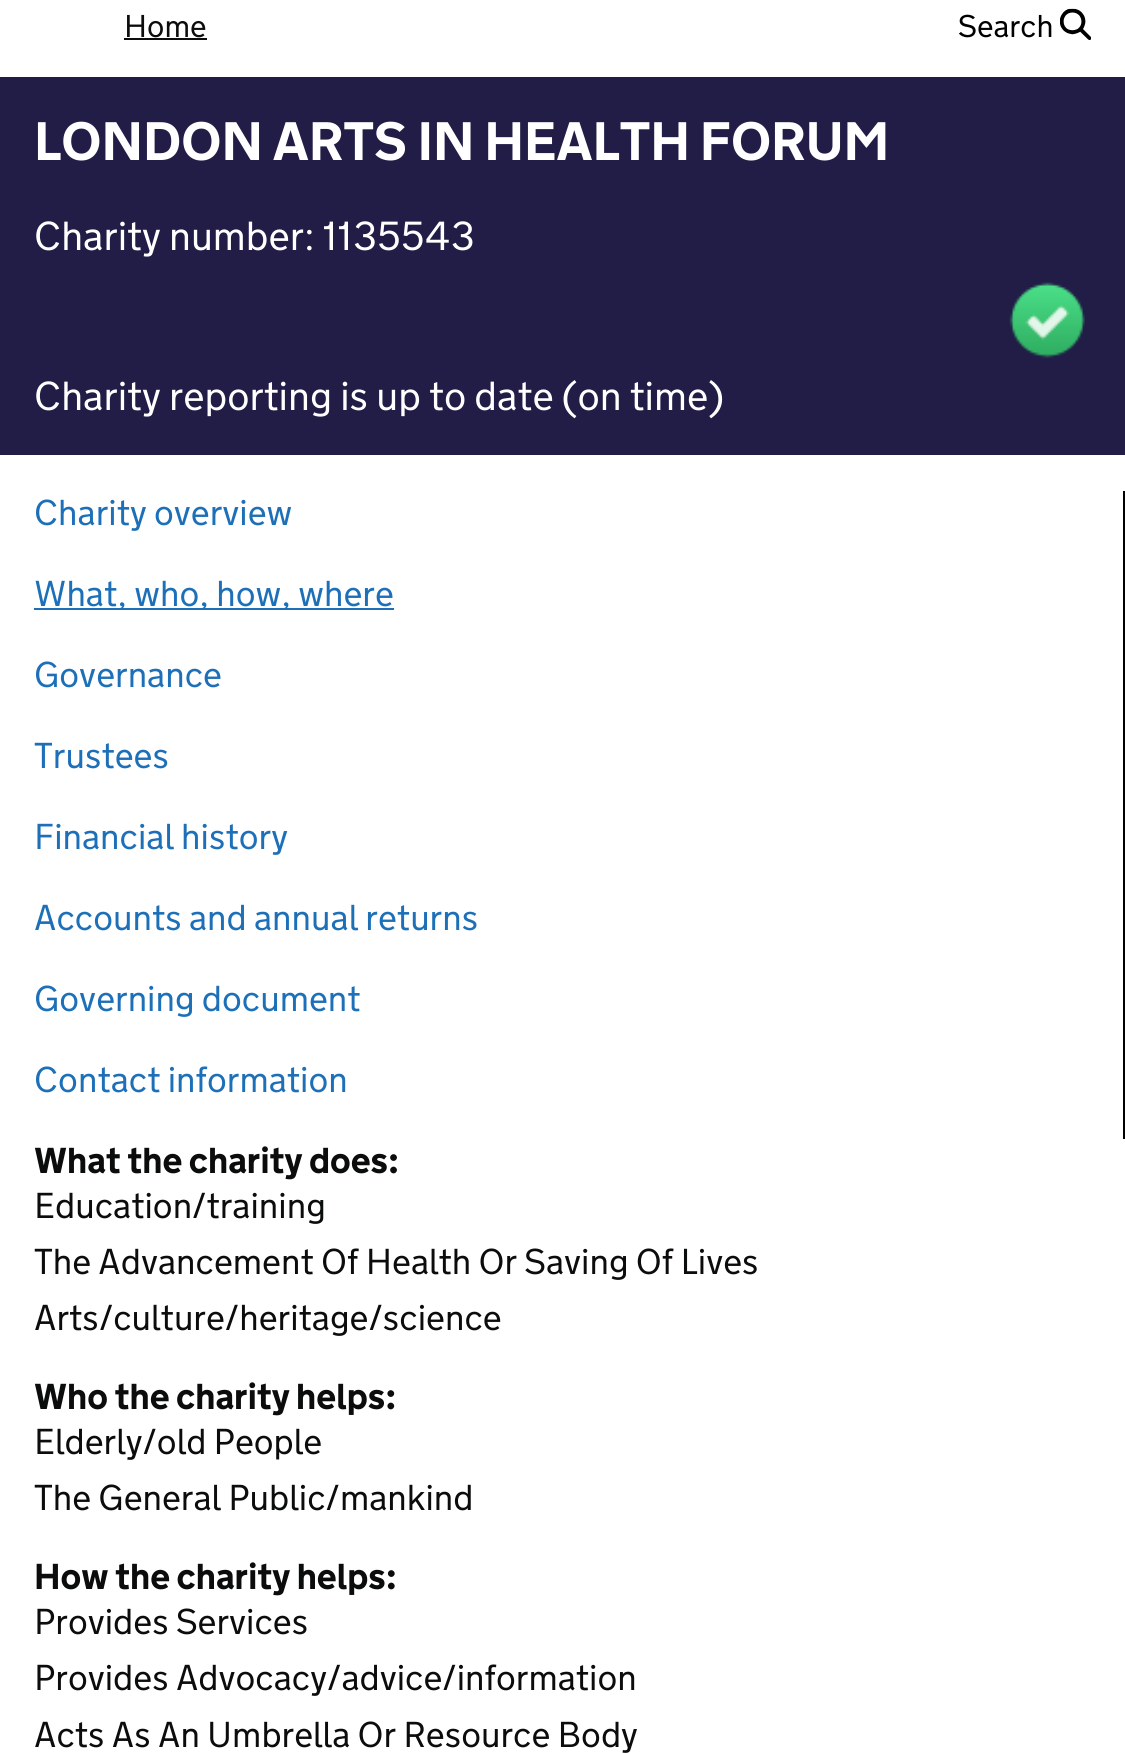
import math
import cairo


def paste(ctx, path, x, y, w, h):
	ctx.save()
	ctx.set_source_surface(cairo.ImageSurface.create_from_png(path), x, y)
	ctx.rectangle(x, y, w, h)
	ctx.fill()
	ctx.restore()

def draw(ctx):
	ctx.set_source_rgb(1, 1, 1)
	ctx.paint()
	ctx.select_font_face('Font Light')
	ctx.set_font_size(31.5)
	ctx.set_source_rgb(0.043, 0.047, 0.047)
	ctx.move_to(124, 37)
	ctx.show_text('Home')
	ctx.rectangle(124, 38, 83, 2)
	ctx.fill()
	ctx.set_source_rgb(0, 0, 0)
	ctx.move_to(958, 37)
	ctx.show_text('Search')
	paste(ctx, 'media/1.png', 1060, 8, 31, 32)
	ctx.set_source_rgb(0.129, 0.114, 0.278)
	ctx.rectangle(0, 77, 1125, 378)
	ctx.fill()
	ctx.select_font_face('Font', cairo.FONT_SLANT_NORMAL, cairo.FONT_WEIGHT_BOLD)
	ctx.set_font_size(54)
	ctx.set_source_rgb(1, 1, 1)
	ctx.move_to(34, 160)
	ctx.show_text('LONDON ARTS IN HEALTH FORUM')
	ctx.select_font_face('Font Light')
	ctx.set_font_size(40.5)
	ctx.move_to(34, 250)
	ctx.show_text('Charity number: 1135543')
	paste(ctx, 'media/2.png', 1009, 282, 76, 76)
	ctx.move_to(34, 410)
	ctx.show_text('Charity reporting is up to date (on time)')
	ctx.set_source_rgb(0, 0, 0)
	ctx.rectangle(1123, 491, 2, 648)
	ctx.fill()
	ctx.set_font_size(36)
	ctx.set_source_rgb(0.114, 0.439, 0.722)
	ctx.move_to(34, 525)
	ctx.show_text('Charity overview')
	ctx.rectangle(34, 608, 360, 2)
	ctx.fill()
	for x, y, s in [
		(34, 606, 'What, who, how, where'),
		(34, 687, 'Governance'),
		(34, 768, 'Trustees'),
		(34, 849, 'Financial history'),
		(34, 930, 'Accounts and annual returns'),
		(34, 1011, 'Governing document'),
		(34, 1092, 'Contact information'),
	]:
		ctx.move_to(x, y)
		ctx.show_text(s)
	ctx.select_font_face('Font', cairo.FONT_SLANT_NORMAL, cairo.FONT_WEIGHT_BOLD)
	ctx.set_source_rgb(0.043, 0.047, 0.047)
	ctx.move_to(34, 1173)
	ctx.show_text('What the charity does:')
	ctx.select_font_face('Font Light')
	for x, y, s in [
		(34, 1218, 'Education/training'),
		(34, 1274, 'The Advancement Of Health Or Saving Of Lives'),
		(34, 1330, 'Arts/culture/heritage/science'),
	]:
		ctx.move_to(x, y)
		ctx.show_text(s)
	ctx.select_font_face('Font', cairo.FONT_SLANT_NORMAL, cairo.FONT_WEIGHT_BOLD)
	ctx.move_to(34, 1409)
	ctx.show_text('Who the charity helps:')
	ctx.select_font_face('Font Light')
	ctx.move_to(34, 1454)
	ctx.show_text('Elderly/old People')
	ctx.move_to(34, 1510)
	ctx.show_text('The General Public/mankind')
	ctx.select_font_face('Font', cairo.FONT_SLANT_NORMAL, cairo.FONT_WEIGHT_BOLD)
	ctx.move_to(34, 1589)
	ctx.show_text('How the charity helps:')
	ctx.select_font_face('Font Light')
	for x, y, s in [
		(34, 1634, 'Provides Services'),
		(34, 1690, 'Provides Advocacy/advice/information'),
		(34, 1747, 'Acts As An Umbrella Or Resource Body'),
	]:
		ctx.move_to(x, y)
		ctx.show_text(s)


surface = cairo.ImageSurface(cairo.FORMAT_RGB24, 1125, 1753)
ctx = cairo.Context(surface)
options = cairo.FontOptions()
options.set_hint_metrics(cairo.HINT_METRICS_OFF)
options.set_hint_style(cairo.HINT_STYLE_NONE)
ctx.set_font_options(options)
ctx.set_miter_limit(4)
draw(ctx)
surface.write_to_png('image.png')
